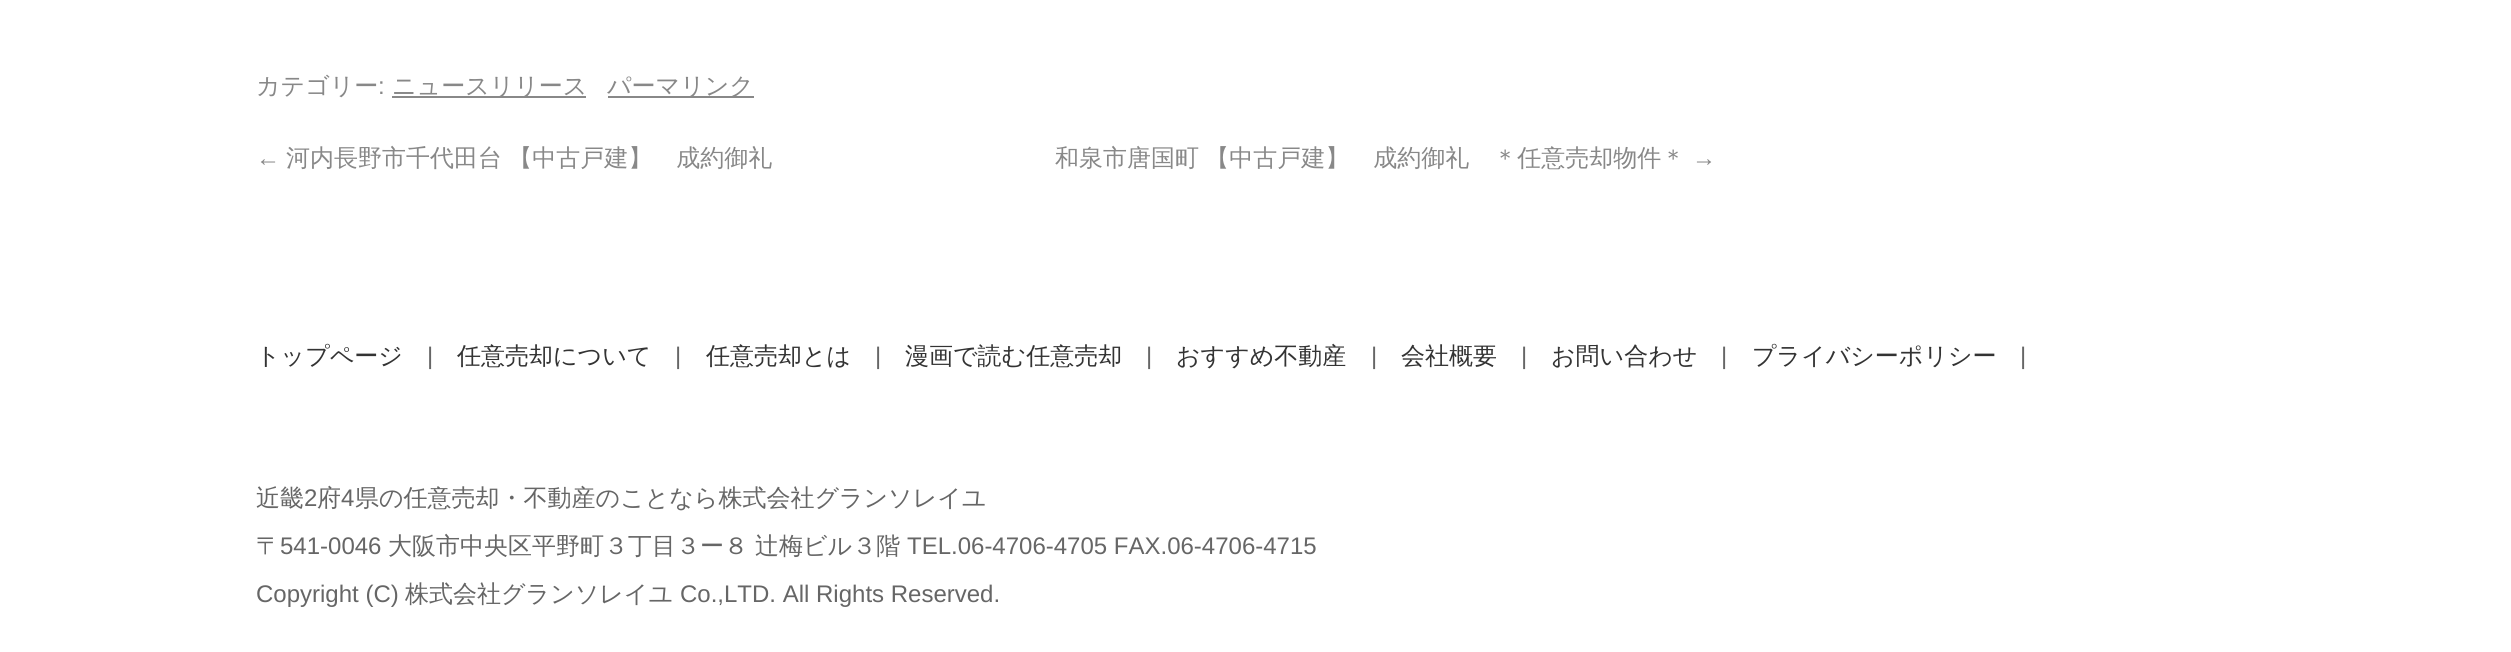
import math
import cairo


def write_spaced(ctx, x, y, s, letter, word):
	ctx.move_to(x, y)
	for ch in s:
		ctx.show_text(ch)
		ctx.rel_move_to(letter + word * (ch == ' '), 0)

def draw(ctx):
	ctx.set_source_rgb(1, 1, 1)
	ctx.paint()
	ctx.select_font_face('WenQuanYi Zen Hei Medium')
	ctx.set_font_size(24)
	ctx.set_source_rgb(0.533, 0.533, 0.533)
	ctx.move_to(256, 94)
	ctx.show_text('カテゴリー')
	ctx.select_font_face('Liberation Sans')
	ctx.move_to(378, 94)
	ctx.show_text(':')
	ctx.rectangle(392, 96, 194, 2)
	ctx.fill()
	ctx.select_font_face('WenQuanYi Zen Hei Medium')
	ctx.move_to(392, 94)
	ctx.show_text('ニュースリリース')
	ctx.rectangle(608, 96, 146, 2)
	ctx.fill()
	ctx.move_to(607, 94)
	ctx.show_text('パーマリンク')
	ctx.select_font_face('Liberation Sans')
	ctx.move_to(256, 166)
	ctx.show_text('←')
	ctx.select_font_face('WenQuanYi Zen Hei Medium')
	write_spaced(ctx, 286, 166, '河内長野市千代田台 【中古戸建】　成約御礼', 0, -1)
	write_spaced(ctx, 1055, 166, '和泉市唐国町 【中古戸建】　成約御礼　＊任意売却物件＊', 0, -1)
	ctx.select_font_face('Liberation Sans')
	ctx.move_to(1692, 166)
	ctx.show_text('→')
	ctx.select_font_face('WenQuanYi Zen Hei Medium')
	ctx.set_source_rgb(0.2, 0.2, 0.2)
	ctx.move_to(256, 364)
	ctx.show_text('トップページ')
	ctx.select_font_face('Liberation Sans')
	ctx.set_source_rgb(0.4, 0.4, 0.4)
	ctx.move_to(427, 364)
	ctx.show_text('|')
	ctx.select_font_face('WenQuanYi Zen Hei Medium')
	ctx.set_source_rgb(0.2, 0.2, 0.2)
	ctx.move_to(457, 364)
	ctx.show_text('任意売却について')
	ctx.select_font_face('Liberation Sans')
	ctx.set_source_rgb(0.4, 0.4, 0.4)
	ctx.move_to(675, 364)
	ctx.show_text('|')
	ctx.select_font_face('WenQuanYi Zen Hei Medium')
	ctx.set_source_rgb(0.2, 0.2, 0.2)
	ctx.move_to(706, 364)
	ctx.show_text('任意売却とは')
	ctx.select_font_face('Liberation Sans')
	ctx.set_source_rgb(0.4, 0.4, 0.4)
	ctx.move_to(875, 364)
	ctx.show_text('|')
	ctx.select_font_face('WenQuanYi Zen Hei Medium')
	ctx.set_source_rgb(0.2, 0.2, 0.2)
	ctx.move_to(905, 364)
	ctx.show_text('漫画で読む任意売却')
	ctx.select_font_face('Liberation Sans')
	ctx.set_source_rgb(0.4, 0.4, 0.4)
	ctx.move_to(1146, 364)
	ctx.show_text('|')
	ctx.select_font_face('WenQuanYi Zen Hei Medium')
	ctx.set_source_rgb(0.2, 0.2, 0.2)
	ctx.move_to(1176, 364)
	ctx.show_text('おすすめ不動産')
	ctx.select_font_face('Liberation Sans')
	ctx.set_source_rgb(0.4, 0.4, 0.4)
	ctx.move_to(1371, 364)
	ctx.show_text('|')
	ctx.select_font_face('WenQuanYi Zen Hei Medium')
	ctx.set_source_rgb(0.2, 0.2, 0.2)
	ctx.move_to(1401, 364)
	ctx.show_text('会社概要')
	ctx.select_font_face('Liberation Sans')
	ctx.set_source_rgb(0.4, 0.4, 0.4)
	ctx.move_to(1521, 364)
	ctx.show_text('|')
	ctx.select_font_face('WenQuanYi Zen Hei Medium')
	ctx.set_source_rgb(0.2, 0.2, 0.2)
	ctx.move_to(1551, 364)
	ctx.show_text('お問い合わせ')
	ctx.select_font_face('Liberation Sans')
	ctx.set_source_rgb(0.4, 0.4, 0.4)
	ctx.move_to(1721, 364)
	ctx.show_text('|')
	ctx.select_font_face('WenQuanYi Zen Hei Medium')
	ctx.set_source_rgb(0.2, 0.2, 0.2)
	ctx.move_to(1752, 364)
	ctx.show_text('プライバシーポリシー')
	ctx.select_font_face('Liberation Sans')
	ctx.set_source_rgb(0.4, 0.4, 0.4)
	ctx.move_to(2020, 364)
	ctx.show_text('|')
	ctx.select_font_face('WenQuanYi Zen Hei Medium')
	ctx.move_to(256, 506)
	ctx.show_text('近畿')
	ctx.select_font_face('Liberation Sans')
	ctx.move_to(304, 506)
	ctx.show_text('2')
	ctx.select_font_face('WenQuanYi Zen Hei Medium')
	ctx.move_to(317, 506)
	ctx.show_text('府')
	ctx.select_font_face('Liberation Sans')
	ctx.move_to(341, 506)
	ctx.show_text('4')
	ctx.select_font_face('WenQuanYi Zen Hei Medium')
	ctx.move_to(355, 506)
	ctx.show_text('県の任意売却・不動産のことなら株式会社グランソレイユ')
	ctx.move_to(256, 554)
	ctx.show_text('〒')
	ctx.select_font_face('Liberation Sans')
	ctx.move_to(280, 554)
	ctx.show_text('541-0046')
	ctx.select_font_face('WenQuanYi Zen Hei Medium')
	ctx.move_to(388, 554)
	ctx.show_text('大阪市中央区平野町３丁目３ー８')
	ctx.move_to(755, 554)
	ctx.show_text('辻梅ビル３階')
	ctx.select_font_face('Liberation Sans')
	ctx.move_to(907, 554)
	ctx.show_text('TEL.06-4706-4705 FAX.06-4706-4715')
	ctx.move_to(256, 602)
	ctx.show_text('Copyright (C)')
	ctx.select_font_face('WenQuanYi Zen Hei Medium')
	ctx.move_to(405, 602)
	ctx.show_text('株式会社グランソレイユ')
	ctx.select_font_face('Liberation Sans')
	ctx.move_to(680, 602)
	ctx.show_text('Co.,LTD. All Rights Reserved.')


surface = cairo.ImageSurface(cairo.FORMAT_RGB24, 2511, 652)
ctx = cairo.Context(surface)
options = cairo.FontOptions()
options.set_hint_metrics(cairo.HINT_METRICS_OFF)
options.set_hint_style(cairo.HINT_STYLE_NONE)
ctx.set_font_options(options)
ctx.set_miter_limit(4)
draw(ctx)
surface.write_to_png('image.png')
